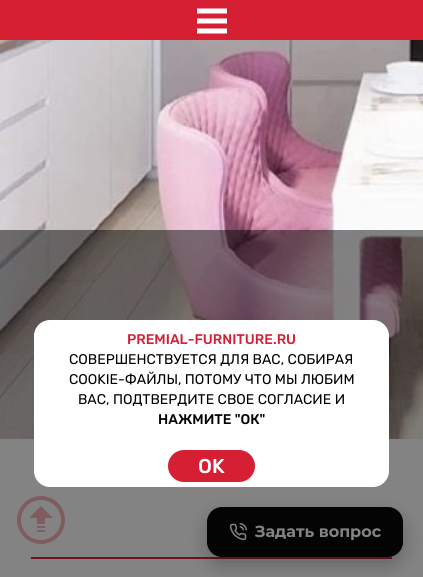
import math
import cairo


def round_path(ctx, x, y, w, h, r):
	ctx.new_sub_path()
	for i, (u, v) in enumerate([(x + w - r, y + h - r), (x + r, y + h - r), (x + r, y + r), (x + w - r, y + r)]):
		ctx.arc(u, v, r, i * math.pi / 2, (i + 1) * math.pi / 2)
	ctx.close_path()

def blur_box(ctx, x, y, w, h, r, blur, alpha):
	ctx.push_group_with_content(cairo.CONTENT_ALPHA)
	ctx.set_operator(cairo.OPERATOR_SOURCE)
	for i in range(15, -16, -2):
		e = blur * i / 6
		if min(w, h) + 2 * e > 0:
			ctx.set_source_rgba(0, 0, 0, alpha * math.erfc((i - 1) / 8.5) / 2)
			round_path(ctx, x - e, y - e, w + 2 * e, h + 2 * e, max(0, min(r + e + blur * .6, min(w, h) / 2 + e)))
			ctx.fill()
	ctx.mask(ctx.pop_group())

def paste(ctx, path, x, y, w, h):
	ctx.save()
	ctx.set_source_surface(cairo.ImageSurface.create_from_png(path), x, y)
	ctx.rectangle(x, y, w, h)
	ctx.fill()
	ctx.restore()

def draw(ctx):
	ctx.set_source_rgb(1, 1, 1)
	ctx.paint()
	ctx.set_source_rgb(0.843, 0.122, 0.204)
	ctx.rectangle(0, 0, 423, 40)
	ctx.fill()
	paste(ctx, 'media/1.png', 197, 8, 30, 26)
	paste(ctx, 'media/2.png', 0, 40, 423, 399)
	paste(ctx, 'media/3.png', 17, 496, 48, 48)
	ctx.rectangle(31, 557, 361, 2)
	ctx.fill()
	ctx.set_source_rgb(0, 0, 0)
	blur_box(ctx, 207, 515, 196, 50, 15, 10, 0.25)
	ctx.set_source_rgb(0, 0, 0)
	round_path(ctx, 207, 507, 196, 50, 15)
	ctx.fill()
	paste(ctx, 'media/4.png', 229, 523, 18, 18)
	ctx.select_font_face('Montserrat', cairo.FONT_SLANT_NORMAL, cairo.FONT_WEIGHT_BOLD)
	ctx.set_font_size(16)
	ctx.set_source_rgb(1, 1, 1)
	ctx.move_to(255, 537)
	ctx.show_text('Задать вопрос')
	ctx.set_source_rgba(0.039, 0.039, 0.039, 0.5)
	ctx.rectangle(0, 230, 423, 347)
	ctx.fill()
	ctx.set_source_rgb(1, 1, 1)
	round_path(ctx, 34, 320, 355, 167, 16)
	ctx.fill()
	ctx.select_font_face('Rubik Medium')
	ctx.set_font_size(14)
	ctx.set_source_rgb(0.843, 0.122, 0.204)
	ctx.move_to(127, 344)
	ctx.show_text('PREMIAL-FURNITURE.RU')
	ctx.select_font_face('Rubik')
	ctx.set_source_rgb(0, 0, 0)
	for x, y, s in [
		(69, 364, 'СОВЕРШЕНСТВУЕТСЯ ДЛЯ ВАС, СОБИРАЯ'),
		(69, 384, 'COOKIE-ФАЙЛЫ, ПОТОМУ ЧТО МЫ ЛЮБИМ'),
		(78, 404, 'ВАС, ПОДТВЕРДИТЕ СВОЕ СОГЛАСИЕ И'),
	]:
		ctx.move_to(x, y)
		ctx.show_text(s)
	ctx.select_font_face('Rubik Medium')
	ctx.move_to(158, 424)
	ctx.show_text('НАЖМИТЕ "ОК"')
	ctx.set_source_rgb(0.843, 0.122, 0.204)
	round_path(ctx, 168, 450, 87, 32, 16)
	ctx.fill()
	ctx.set_font_size(20)
	ctx.set_source_rgb(1, 1, 1)
	ctx.move_to(198, 473)
	ctx.show_text('OK')


surface = cairo.ImageSurface(cairo.FORMAT_RGB24, 423, 577)
ctx = cairo.Context(surface)
options = cairo.FontOptions()
options.set_hint_metrics(cairo.HINT_METRICS_OFF)
options.set_hint_style(cairo.HINT_STYLE_NONE)
ctx.set_font_options(options)
ctx.set_miter_limit(4)
draw(ctx)
surface.write_to_png('image.png')
